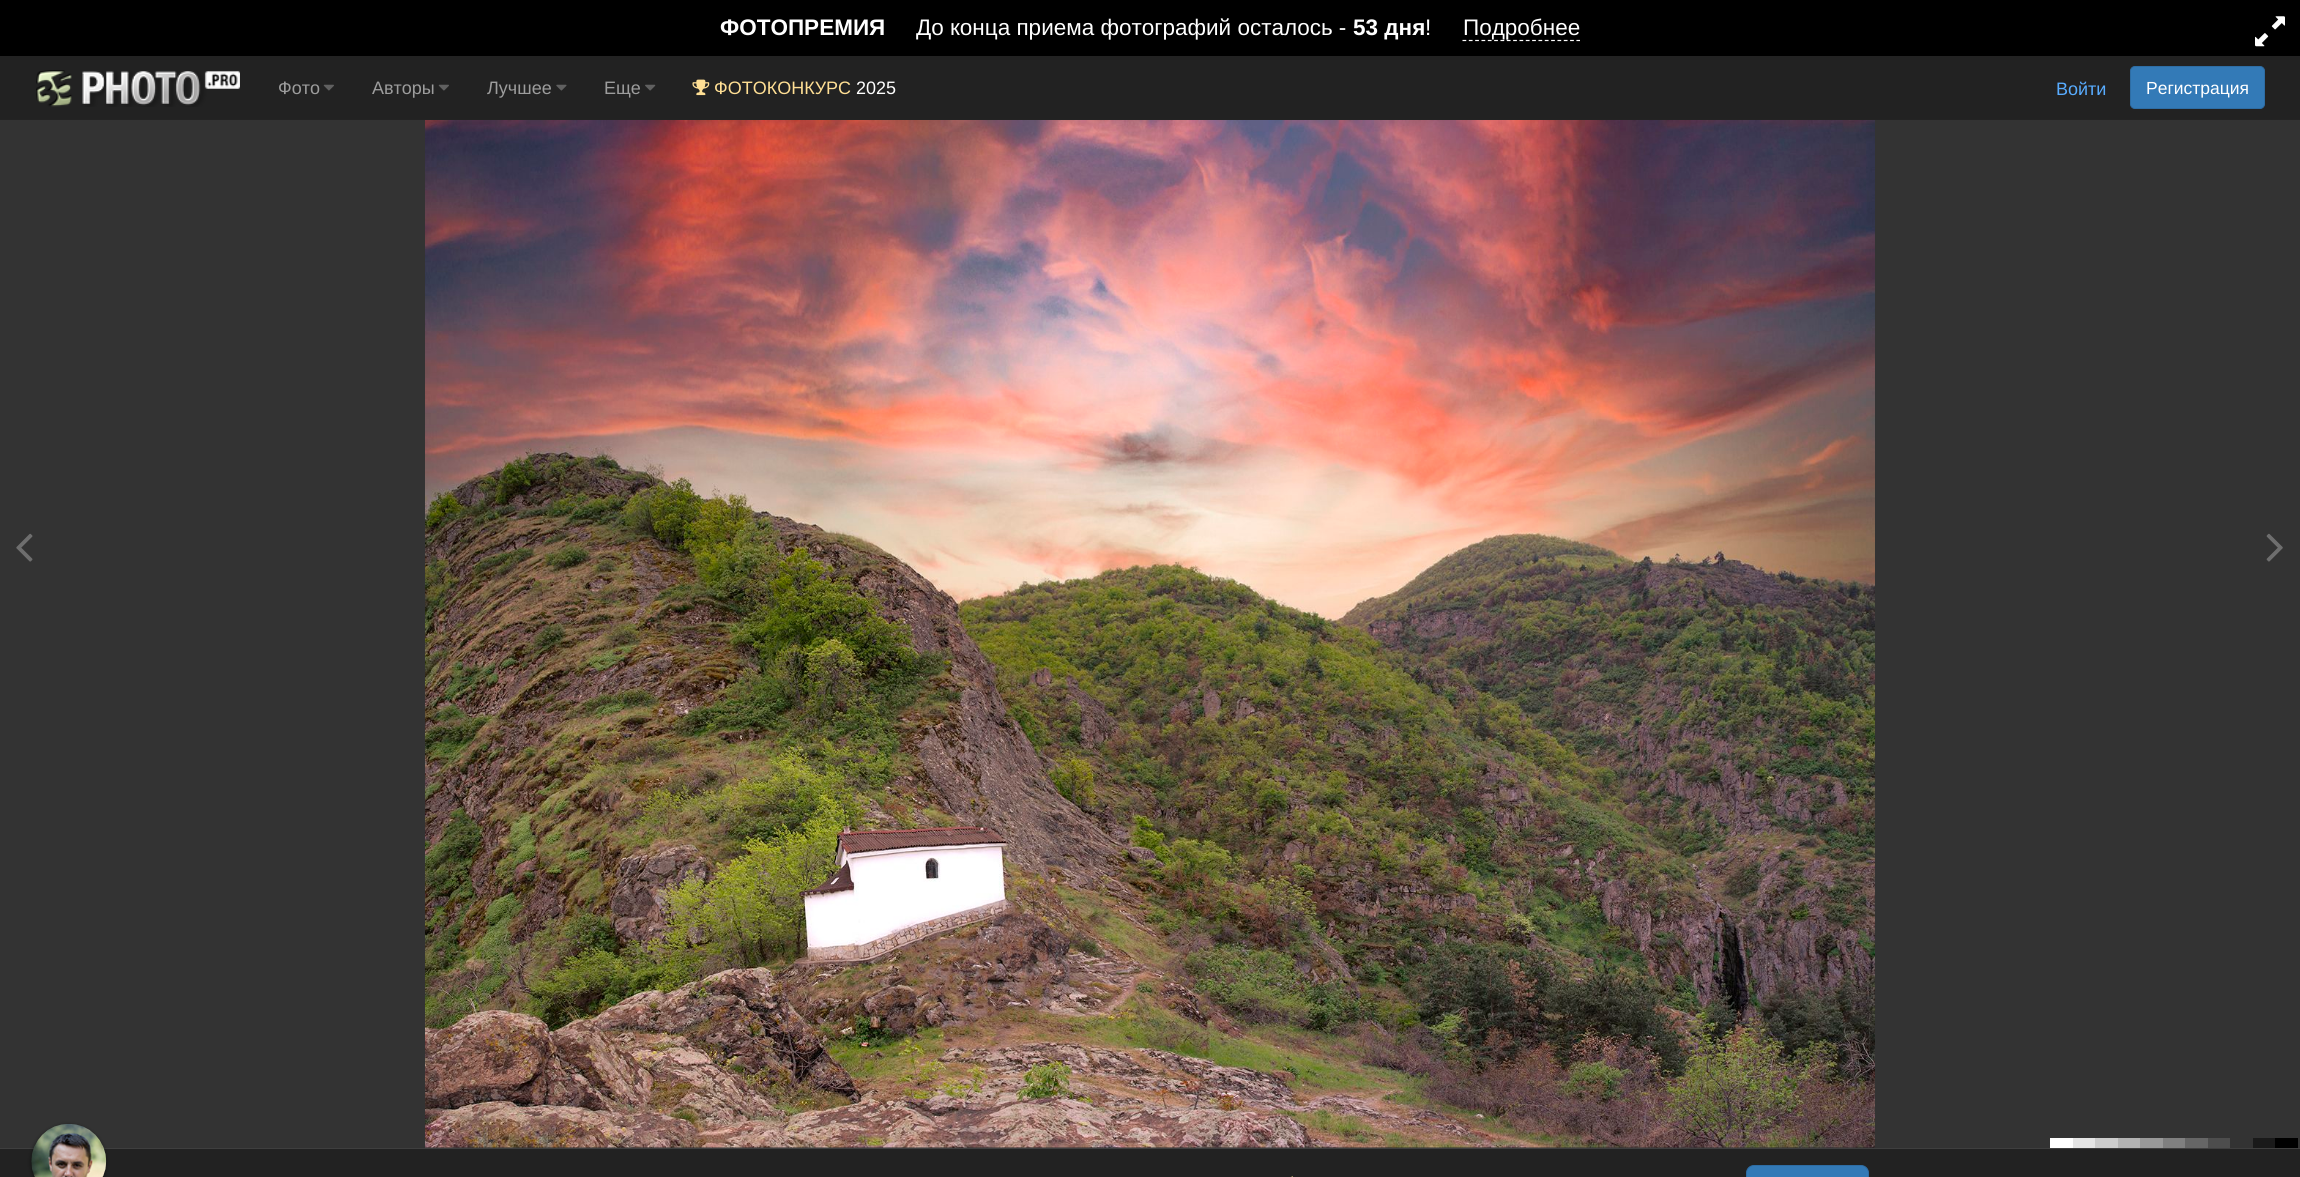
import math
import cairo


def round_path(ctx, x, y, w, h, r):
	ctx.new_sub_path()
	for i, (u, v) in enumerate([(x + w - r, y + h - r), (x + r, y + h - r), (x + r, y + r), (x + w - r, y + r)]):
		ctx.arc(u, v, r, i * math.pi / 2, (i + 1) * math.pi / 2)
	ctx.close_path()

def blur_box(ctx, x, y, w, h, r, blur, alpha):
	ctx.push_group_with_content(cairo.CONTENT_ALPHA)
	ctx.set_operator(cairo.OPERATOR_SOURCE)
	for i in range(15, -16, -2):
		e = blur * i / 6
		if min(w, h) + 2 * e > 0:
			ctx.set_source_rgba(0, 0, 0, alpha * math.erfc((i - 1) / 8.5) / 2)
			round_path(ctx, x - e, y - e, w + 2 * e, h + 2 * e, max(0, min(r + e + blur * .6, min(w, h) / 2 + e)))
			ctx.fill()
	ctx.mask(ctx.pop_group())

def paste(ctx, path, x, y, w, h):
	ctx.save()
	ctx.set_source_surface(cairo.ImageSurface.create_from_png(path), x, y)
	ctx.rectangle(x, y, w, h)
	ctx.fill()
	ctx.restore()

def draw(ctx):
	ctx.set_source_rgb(0, 0, 0)
	ctx.paint()
	ctx.select_font_face('Liberation Sans', cairo.FONT_SLANT_NORMAL, cairo.FONT_WEIGHT_BOLD)
	ctx.set_font_size(22.5)
	ctx.set_source_rgb(1, 1, 1)
	ctx.move_to(720, 35)
	ctx.show_text('ФОТОПРЕМИЯ')
	ctx.select_font_face('Liberation Sans')
	ctx.move_to(916, 35)
	ctx.show_text('До конца приема фотографий осталось -')
	ctx.select_font_face('Liberation Sans', cairo.FONT_SLANT_NORMAL, cairo.FONT_WEIGHT_BOLD)
	ctx.move_to(1353, 35)
	ctx.show_text('53 дня')
	ctx.select_font_face('Liberation Sans')
	ctx.move_to(1425, 35)
	ctx.show_text('!')
	ctx.new_path()
	ctx.move_to(1462.5, 40.5)
	ctx.line_to(1580, 40.5)
	ctx.set_line_width(1.2)
	ctx.set_dash([3.75, 2.58])
	ctx.stroke()
	ctx.move_to(1463, 35)
	ctx.show_text('Подробнее')
	paste(ctx, 'media/1.png', 2255, 16, 30, 31)
	ctx.set_source_rgb(0.133, 0.133, 0.133)
	ctx.rectangle(0, 56, 2300, 63)
	ctx.fill()
	ctx.set_source_rgb(0.137, 0.137, 0.137)
	ctx.rectangle(0, 119, 2300, 1)
	ctx.fill()
	paste(ctx, 'media/2.png', 36, 70, 204, 37)
	ctx.set_font_size(18)
	ctx.set_source_rgb(0.616, 0.616, 0.616)
	ctx.move_to(278, 94)
	ctx.show_text('Фото')
	paste(ctx, 'media/3.png', 323, 84, 11, 7)
	ctx.move_to(372, 94)
	ctx.show_text('Авторы')
	paste(ctx, 'media/3.png', 438, 84, 11, 7)
	ctx.move_to(487, 94)
	ctx.show_text('Лучшее')
	paste(ctx, 'media/4.png', 556, 84, 11, 7)
	ctx.move_to(604, 94)
	ctx.show_text('Еще')
	paste(ctx, 'media/5.png', 645, 84, 11, 7)
	paste(ctx, 'media/6.png', 692, 79, 18, 17)
	ctx.set_source_rgb(1, 0.875, 0.58)
	ctx.move_to(714, 94)
	ctx.show_text('ФОТОКОНКУРС')
	ctx.set_source_rgb(1, 1, 1)
	ctx.move_to(856, 94)
	ctx.show_text('2025')
	ctx.set_source_rgb(0.345, 0.675, 1)
	ctx.move_to(2056, 95)
	ctx.show_text('Войти')
	ctx.set_source_rgb(0.2, 0.478, 0.718)
	round_path(ctx, 2130.5, 66.5, 134, 42, 4.5)
	ctx.fill_preserve()
	ctx.set_source_rgb(0.18, 0.427, 0.643)
	ctx.set_line_width(1)
	ctx.set_dash([])
	ctx.stroke()
	ctx.set_font_size(17.5)
	ctx.set_source_rgb(1, 1, 1)
	ctx.move_to(2146, 94)
	ctx.show_text('Регистрация')
	ctx.set_source_rgb(0.2, 0.2, 0.2)
	ctx.rectangle(0, 120, 2300, 1028)
	ctx.fill()
	paste(ctx, 'media/7.png', 16, 533, 17, 29)
	paste(ctx, 'media/8.png', 425, 120, 1450, 1028)
	paste(ctx, 'media/9.png', 2266, 533, 17, 29)
	ctx.set_source_rgb(0.133, 0.133, 0.133)
	ctx.rectangle(0, 1149, 2300, 28)
	ctx.fill()
	ctx.set_source_rgb(0.247, 0.247, 0.247)
	ctx.rectangle(0, 1148, 2300, 1)
	ctx.fill()
	ctx.set_source_rgb(0, 0, 0)
	blur_box(ctx, 31, 1125, 75, 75, 37.5, 2, 0.5)
	paste(ctx, 'media/10.png', 31, 1124, 76, 53)
	paste(ctx, 'media/11.png', 1291, 1176, 2, 1)
	ctx.set_source_rgb(0.2, 0.478, 0.718)
	round_path(ctx, 1746.5, 1165.5, 122, 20, 7.5)
	ctx.fill_preserve()
	ctx.set_source_rgb(0.18, 0.427, 0.643)
	ctx.stroke()
	ctx.set_source_rgb(1, 1, 1)
	ctx.rectangle(2050, 1138, 23, 10)
	ctx.fill()
	ctx.set_source_rgb(0.898, 0.898, 0.898)
	ctx.rectangle(2073, 1138, 22, 10)
	ctx.fill()
	ctx.set_source_rgb(0.8, 0.8, 0.8)
	ctx.rectangle(2095, 1138, 23, 10)
	ctx.fill()
	ctx.set_source_rgb(0.702, 0.702, 0.702)
	ctx.rectangle(2118, 1138, 22, 10)
	ctx.fill()
	ctx.set_source_rgb(0.6, 0.6, 0.6)
	ctx.rectangle(2140, 1138, 23, 10)
	ctx.fill()
	ctx.set_source_rgb(0.502, 0.502, 0.502)
	ctx.rectangle(2163, 1138, 22, 10)
	ctx.fill()
	ctx.set_source_rgb(0.4, 0.4, 0.4)
	ctx.rectangle(2185, 1138, 23, 10)
	ctx.fill()
	ctx.set_source_rgb(0.302, 0.302, 0.302)
	ctx.rectangle(2208, 1138, 22, 10)
	ctx.fill()
	ctx.set_source_rgb(0.102, 0.102, 0.102)
	ctx.rectangle(2253, 1138, 22, 10)
	ctx.fill()
	ctx.set_source_rgb(0, 0, 0)
	ctx.rectangle(2275, 1138, 23, 10)
	ctx.fill()


surface = cairo.ImageSurface(cairo.FORMAT_RGB24, 2300, 1177)
ctx = cairo.Context(surface)
options = cairo.FontOptions()
options.set_hint_metrics(cairo.HINT_METRICS_OFF)
options.set_hint_style(cairo.HINT_STYLE_NONE)
ctx.set_font_options(options)
ctx.set_miter_limit(4)
draw(ctx)
surface.write_to_png('image.png')
